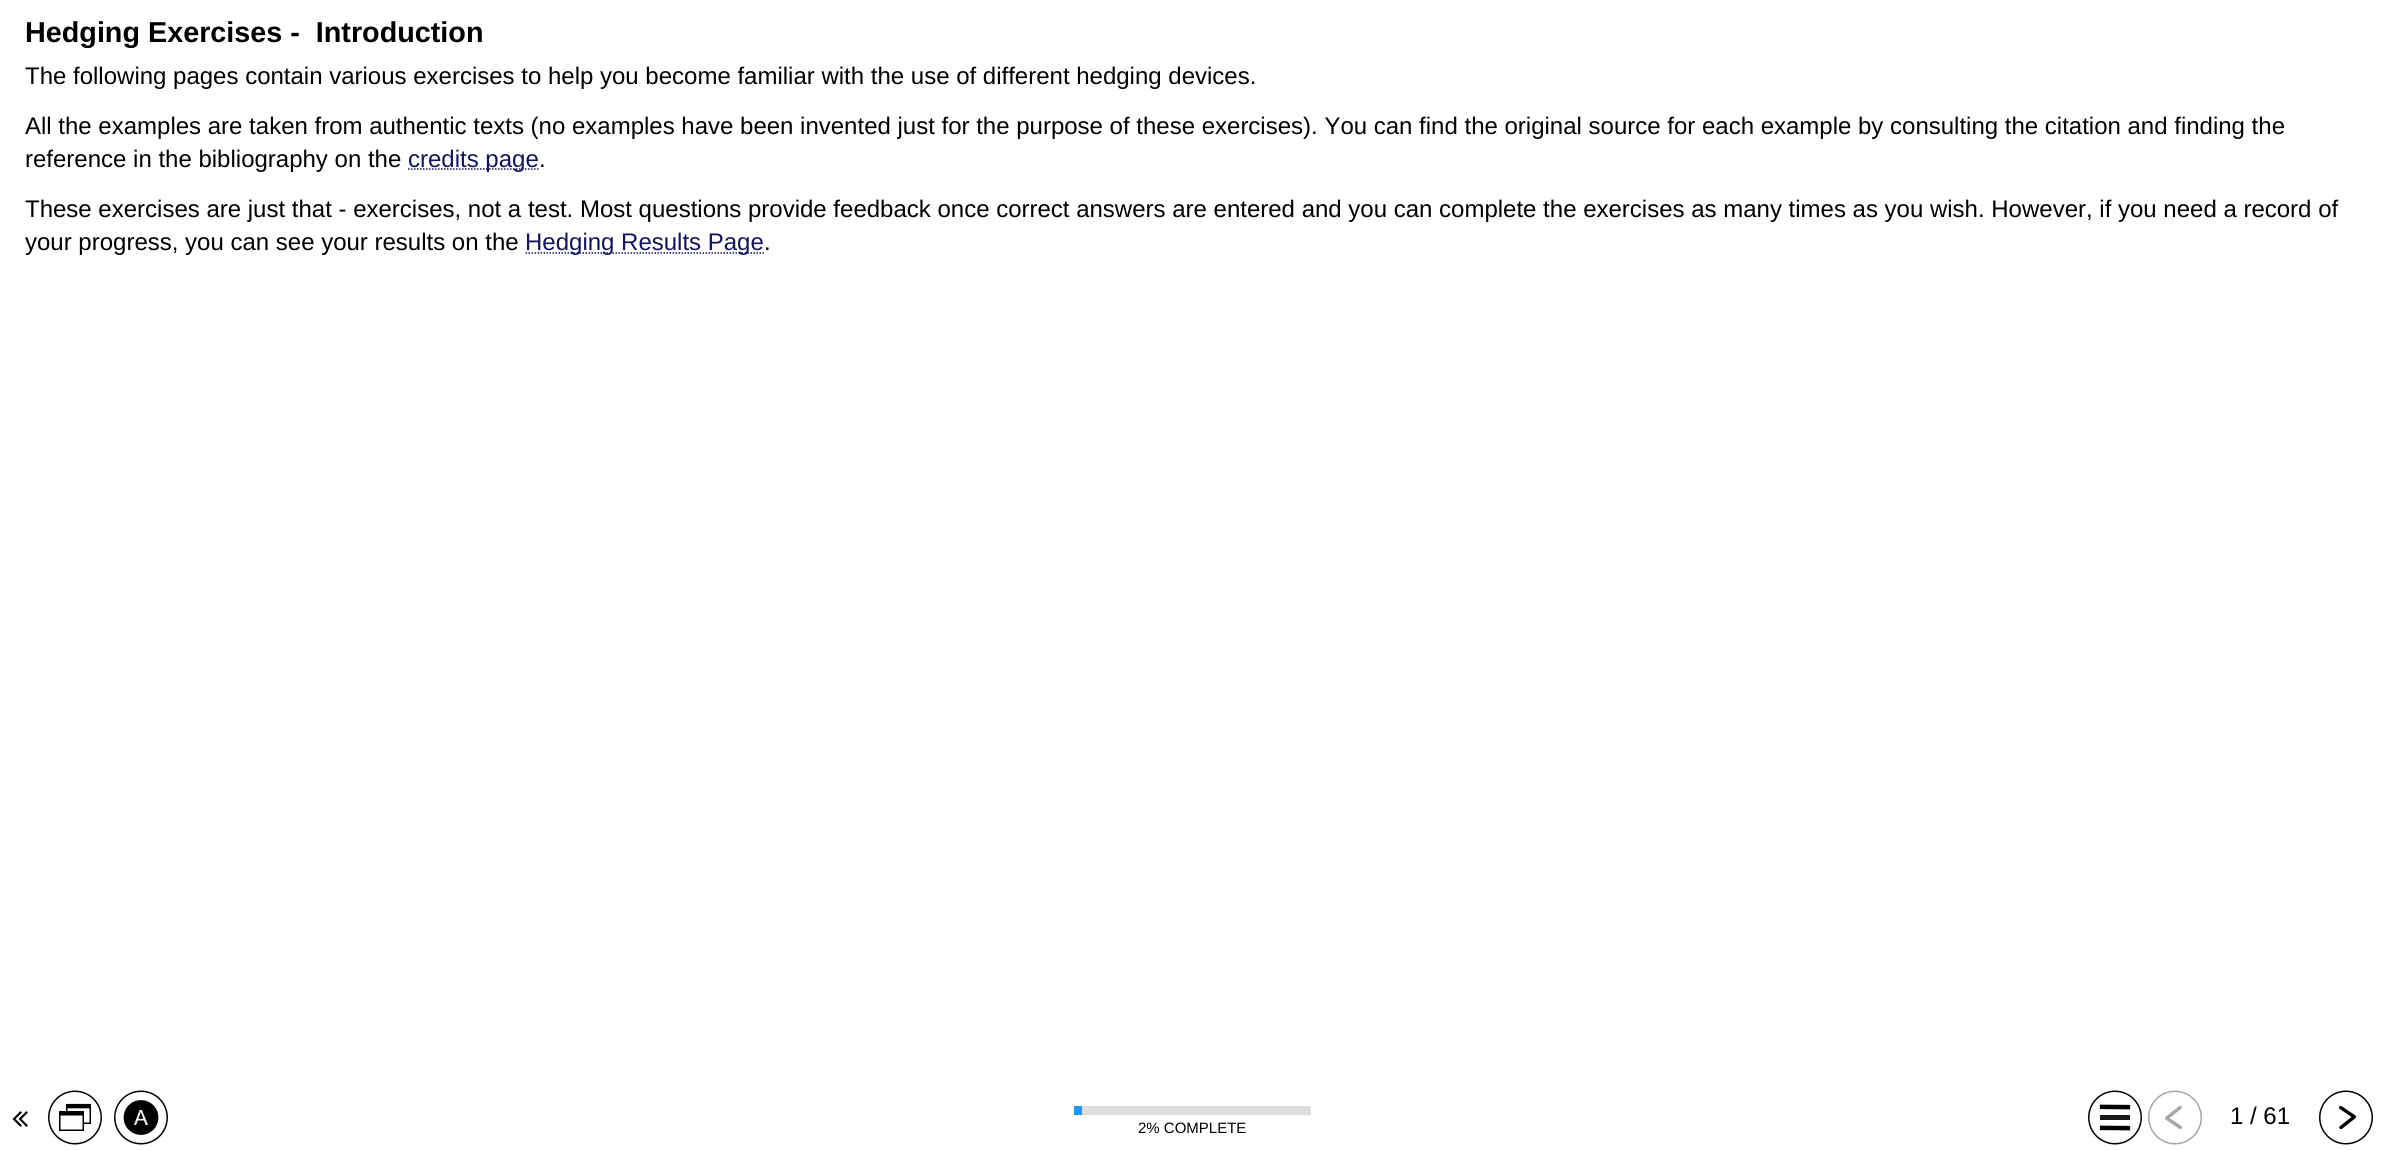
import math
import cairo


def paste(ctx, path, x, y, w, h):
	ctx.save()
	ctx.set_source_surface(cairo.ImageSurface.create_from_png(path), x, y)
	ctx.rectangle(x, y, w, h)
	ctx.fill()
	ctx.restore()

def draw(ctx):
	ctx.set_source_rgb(1, 1, 1)
	ctx.paint()
	ctx.select_font_face('Liberation Sans', cairo.FONT_SLANT_NORMAL, cairo.FONT_WEIGHT_BOLD)
	ctx.set_font_size(28.75)
	ctx.set_source_rgb(0, 0, 0)
	ctx.move_to(25, 42)
	ctx.show_text('Hedging Exercises -  Introduction')
	ctx.select_font_face('Liberation Sans')
	ctx.set_font_size(24)
	for x, y, s in [
		(25, 84, 'The following pages contain various exercises to help you become familiar with the use of different hedging devices.'),
		(25, 134, 'All the examples are taken from authentic texts (no examples have been invented just for the purpose of these exercises). You can find the original source for each example by consulting the citation and finding the'),
		(25, 167, 'reference in the bibliography on the'),
	]:
		ctx.move_to(x, y)
		ctx.show_text(s)
	ctx.new_path()
	ctx.move_to(408, 169)
	ctx.line_to(539, 169)
	ctx.set_source_rgb(0.082, 0.082, 0.341)
	ctx.set_line_width(1.5)
	ctx.set_dash([1.5, 1.5])
	ctx.stroke()
	ctx.move_to(408, 167)
	ctx.show_text('credits page')
	ctx.set_source_rgb(0, 0, 0)
	for x, y, s in [
		(539, 167, '.'),
		(25, 217, 'These exercises are just that - exercises, not a test. Most questions provide feedback once correct answers are entered and you can complete the exercises as many times as you wish. However, if you need a record of'),
		(25, 250, 'your progress, you can see your results on the'),
	]:
		ctx.move_to(x, y)
		ctx.show_text(s)
	ctx.new_path()
	ctx.move_to(525.5, 253)
	ctx.line_to(764, 253)
	ctx.set_source_rgb(0.082, 0.082, 0.341)
	ctx.stroke()
	ctx.move_to(525, 250)
	ctx.show_text('Hedging Results Page')
	ctx.set_source_rgb(0, 0, 0)
	ctx.move_to(764, 250)
	ctx.show_text('.')
	paste(ctx, 'media/1.png', 12, 1111, 16, 16)
	paste(ctx, 'media/2.png', 48, 1090, 54, 55)
	paste(ctx, 'media/3.png', 114, 1090, 54, 55)
	ctx.set_source_rgb(0.867, 0.867, 0.867)
	ctx.rectangle(1082, 1106, 229, 9)
	ctx.fill()
	ctx.set_source_rgb(0.129, 0.588, 0.953)
	ctx.rectangle(1074, 1106, 8, 9)
	ctx.fill()
	ctx.set_font_size(15)
	ctx.set_source_rgb(0, 0, 0)
	ctx.move_to(1138, 1133)
	ctx.show_text('2% COMPLETE')
	paste(ctx, 'media/4.png', 2088, 1090, 54, 55)
	paste(ctx, 'media/5.png', 2148, 1090, 54, 55)
	ctx.set_font_size(24)
	ctx.move_to(2230, 1124)
	ctx.show_text('1 / 61')
	paste(ctx, 'media/6.png', 2319, 1090, 54, 55)


surface = cairo.ImageSurface(cairo.FORMAT_RGB24, 2381, 1150)
ctx = cairo.Context(surface)
options = cairo.FontOptions()
options.set_hint_metrics(cairo.HINT_METRICS_OFF)
options.set_hint_style(cairo.HINT_STYLE_NONE)
ctx.set_font_options(options)
ctx.set_miter_limit(4)
draw(ctx)
surface.write_to_png('image.png')
